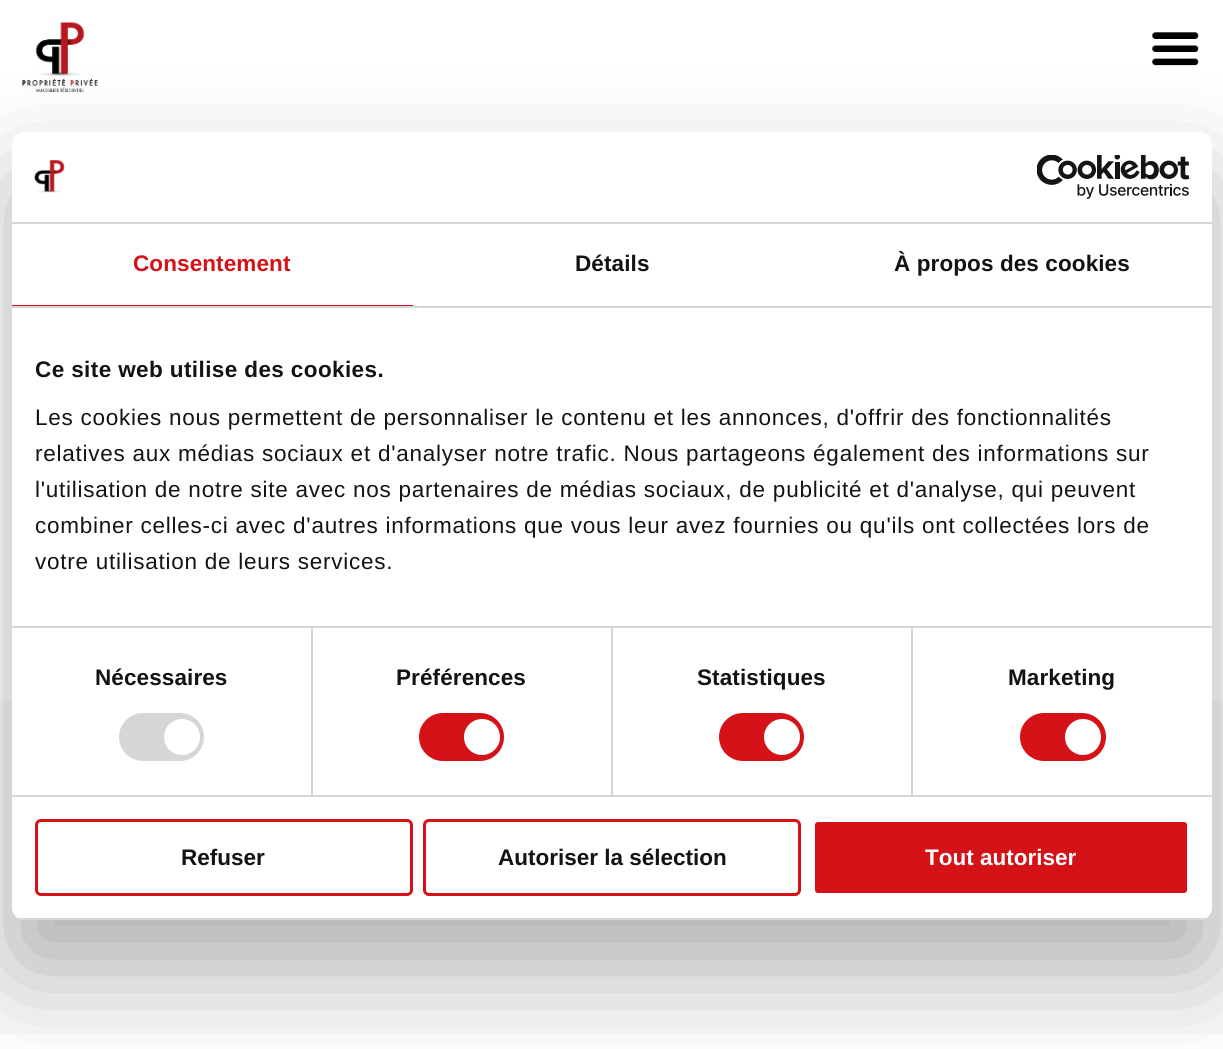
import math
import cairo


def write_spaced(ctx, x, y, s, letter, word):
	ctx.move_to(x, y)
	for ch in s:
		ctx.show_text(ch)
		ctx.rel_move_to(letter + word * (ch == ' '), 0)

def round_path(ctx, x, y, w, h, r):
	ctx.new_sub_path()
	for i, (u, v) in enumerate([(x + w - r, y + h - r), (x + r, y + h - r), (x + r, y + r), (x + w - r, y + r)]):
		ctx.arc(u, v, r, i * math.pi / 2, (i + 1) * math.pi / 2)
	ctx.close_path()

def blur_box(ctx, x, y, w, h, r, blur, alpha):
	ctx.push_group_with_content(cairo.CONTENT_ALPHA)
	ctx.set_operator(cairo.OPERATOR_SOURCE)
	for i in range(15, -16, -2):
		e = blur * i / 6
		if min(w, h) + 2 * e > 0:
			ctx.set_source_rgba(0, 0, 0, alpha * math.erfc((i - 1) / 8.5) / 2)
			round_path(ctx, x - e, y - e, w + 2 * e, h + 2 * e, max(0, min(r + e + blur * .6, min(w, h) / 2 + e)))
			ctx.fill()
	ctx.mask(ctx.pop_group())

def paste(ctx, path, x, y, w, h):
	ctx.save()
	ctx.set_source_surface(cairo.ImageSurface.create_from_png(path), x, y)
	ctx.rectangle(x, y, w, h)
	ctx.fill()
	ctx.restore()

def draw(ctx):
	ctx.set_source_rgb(1, 1, 1)
	ctx.paint()
	paste(ctx, 'media/1.png', 22, 22, 76, 71)
	paste(ctx, 'media/2.png', 1152, 32, 47, 34)
	ctx.set_source_rgb(0.976, 0.976, 0.976)
	ctx.rectangle(0, 701, 1223, 333)
	ctx.fill()
	ctx.set_source_rgb(0, 0, 0)
	blur_box(ctx, 12, 180, 1200, 788, 12, 51, 0.3)
	ctx.set_source_rgb(1, 1, 1)
	round_path(ctx, 12, 132, 1200, 788, 12)
	ctx.fill()
	ctx.set_source_rgb(0.839, 0.839, 0.839)
	ctx.rectangle(12, 222, 1200, 2)
	ctx.fill()
	paste(ctx, 'media/3.png', 34, 160, 31, 33)
	paste(ctx, 'media/4.png', 1037, 155, 153, 44)
	ctx.rectangle(12, 306, 1200, 2)
	ctx.fill()
	ctx.set_source_rgb(0.831, 0.071, 0.09)
	ctx.rectangle(12, 305, 401, 1)
	ctx.fill()
	ctx.select_font_face('Liberation Sans', cairo.FONT_SLANT_NORMAL, cairo.FONT_WEIGHT_BOLD)
	ctx.set_font_size(22.5)
	write_spaced(ctx, 133, 271, 'Consentement', 0.1, 0)
	ctx.set_source_rgb(0.078, 0.078, 0.078)
	write_spaced(ctx, 575, 271, 'Détails', 0.1, 0)
	write_spaced(ctx, 894, 271, 'À propos des cookies', 0.1, 0)
	ctx.set_source_rgb(0.839, 0.839, 0.839)
	ctx.rectangle(311, 627, 2, 168)
	ctx.rectangle(611, 627, 2, 168)
	ctx.rectangle(911, 627, 2, 168)
	ctx.rectangle(12, 626, 1200, 2)
	ctx.fill()
	ctx.set_source_rgb(0.078, 0.078, 0.078)
	write_spaced(ctx, 35, 377, 'Ce site web utilise des cookies.', 0.4, 0)
	ctx.select_font_face('Liberation Sans')
	for x, y, s in [
		(35, 425, 'Les cookies nous permettent de personnaliser le contenu et les annonces, d\'offrir des fonctionnalités'),
		(35, 461, 'relatives aux médias sociaux et d\'analyser notre trafic. Nous partageons également des informations sur'),
		(35, 497, 'l\'utilisation de notre site avec nos partenaires de médias sociaux, de publicité et d\'analyse, qui peuvent'),
		(35, 533, 'combiner celles-ci avec d\'autres informations que vous leur avez fournies ou qu\'ils ont collectées lors de'),
		(35, 569, 'votre utilisation de leurs services.'),
	]:
		write_spaced(ctx, x, y, s, 0.75, 0)
	ctx.set_source_rgb(0.839, 0.839, 0.839)
	ctx.rectangle(12, 795, 1200, 2)
	ctx.fill()
	ctx.select_font_face('Liberation Sans', cairo.FONT_SLANT_NORMAL, cairo.FONT_WEIGHT_BOLD)
	ctx.set_source_rgb(0.078, 0.078, 0.078)
	write_spaced(ctx, 95, 685, 'Nécessaires', 0.1, 0)
	ctx.set_source_rgb(0.839, 0.839, 0.839)
	round_path(ctx, 119, 713, 85, 48, 24)
	ctx.fill()
	ctx.set_source_rgb(1, 1, 1)
	ctx.arc(182, 737, 18, 0, 2 * math.pi)
	ctx.fill()
	ctx.set_source_rgb(0.078, 0.078, 0.078)
	write_spaced(ctx, 396, 685, 'Préférences', 0.1, 0)
	ctx.set_source_rgb(0.831, 0.071, 0.09)
	round_path(ctx, 419, 713, 85, 48, 24)
	ctx.fill()
	ctx.set_source_rgb(1, 1, 1)
	ctx.arc(482, 737, 18, 0, 2 * math.pi)
	ctx.fill()
	ctx.set_source_rgb(0.078, 0.078, 0.078)
	write_spaced(ctx, 697, 685, 'Statistiques', 0.1, 0)
	ctx.set_source_rgb(0.831, 0.071, 0.09)
	round_path(ctx, 719, 713, 85, 48, 24)
	ctx.fill()
	ctx.set_source_rgb(1, 1, 1)
	ctx.arc(782, 737, 18, 0, 2 * math.pi)
	ctx.fill()
	ctx.set_source_rgb(0.078, 0.078, 0.078)
	write_spaced(ctx, 1008, 685, 'Marketing', 0.1, 0)
	ctx.set_source_rgb(0.831, 0.071, 0.09)
	round_path(ctx, 1020, 713, 86, 48, 24)
	ctx.fill()
	ctx.set_source_rgb(1, 1, 1)
	ctx.arc(1083, 737, 18, 0, 2 * math.pi)
	ctx.fill()
	ctx.save()
	round_path(ctx, 12, 132, 1200, 788, 12)
	ctx.clip()
	ctx.set_source_rgb(0.839, 0.839, 0.839)
	ctx.rectangle(12, 918, 1200, 2)
	ctx.fill()
	ctx.restore()
	round_path(ctx, 36.5, 820.5, 375, 74, 4.5)
	ctx.set_source_rgb(0.831, 0.071, 0.09)
	ctx.set_line_width(3)
	ctx.stroke()
	ctx.set_source_rgb(0.078, 0.078, 0.078)
	ctx.move_to(181, 865)
	ctx.show_text('Refuser')
	round_path(ctx, 424.5, 820.5, 375, 74, 4.5)
	ctx.set_source_rgb(0.831, 0.071, 0.09)
	ctx.stroke()
	ctx.set_source_rgb(0.078, 0.078, 0.078)
	ctx.move_to(498, 865)
	ctx.show_text('Autoriser la sélection')
	ctx.set_source_rgb(0.831, 0.071, 0.09)
	round_path(ctx, 813.5, 820.5, 375, 74, 4.5)
	ctx.fill_preserve()
	ctx.set_source_rgb(1, 1, 1)
	ctx.stroke()
	ctx.move_to(925, 865)
	ctx.show_text('Tout autoriser')


surface = cairo.ImageSurface(cairo.FORMAT_RGB24, 1223, 1049)
ctx = cairo.Context(surface)
options = cairo.FontOptions()
options.set_hint_metrics(cairo.HINT_METRICS_OFF)
options.set_hint_style(cairo.HINT_STYLE_NONE)
ctx.set_font_options(options)
ctx.set_miter_limit(4)
draw(ctx)
surface.write_to_png('image.png')
